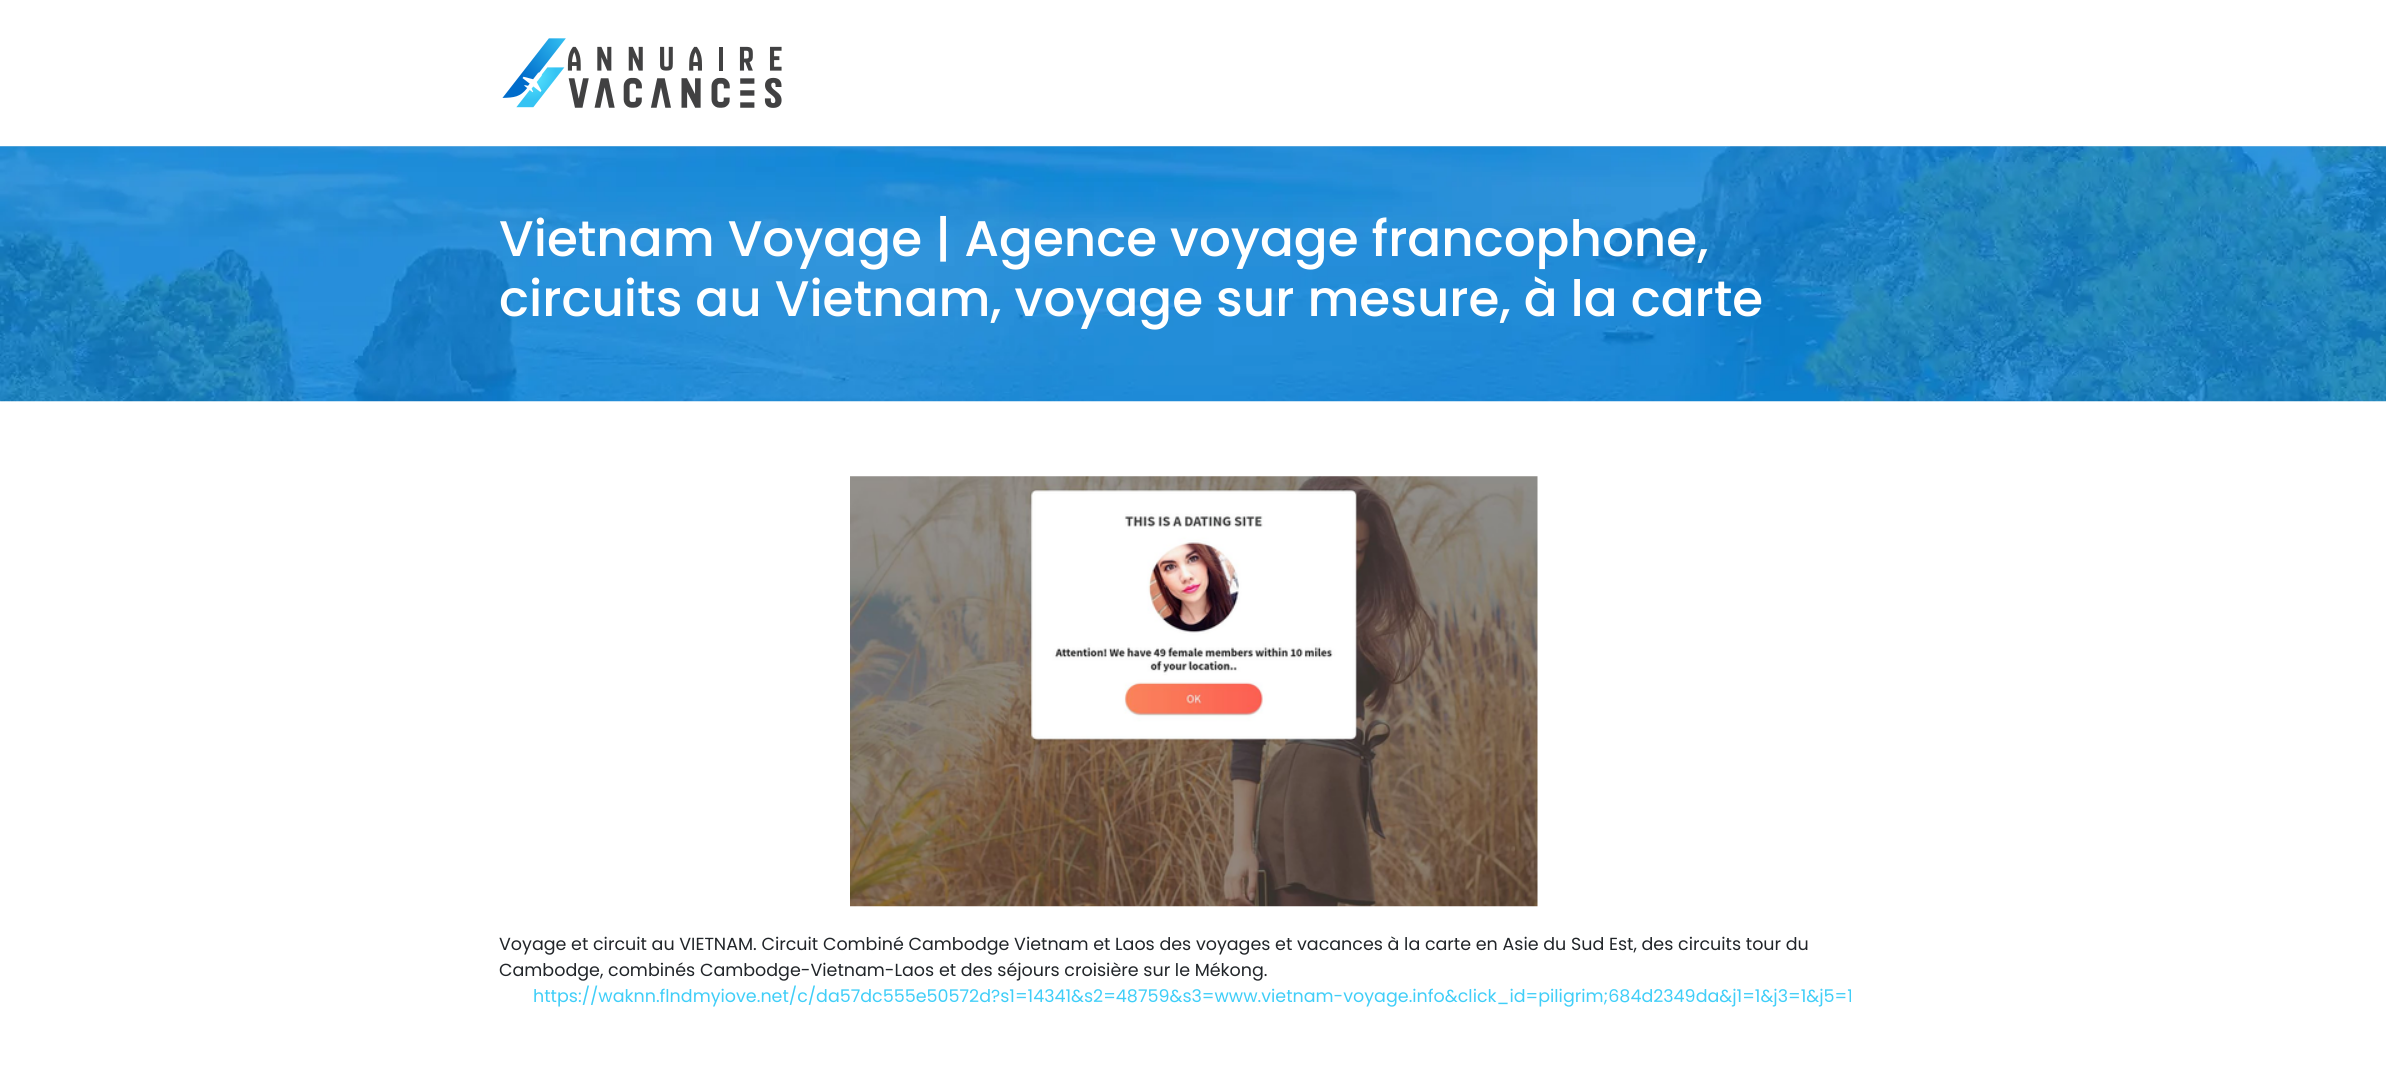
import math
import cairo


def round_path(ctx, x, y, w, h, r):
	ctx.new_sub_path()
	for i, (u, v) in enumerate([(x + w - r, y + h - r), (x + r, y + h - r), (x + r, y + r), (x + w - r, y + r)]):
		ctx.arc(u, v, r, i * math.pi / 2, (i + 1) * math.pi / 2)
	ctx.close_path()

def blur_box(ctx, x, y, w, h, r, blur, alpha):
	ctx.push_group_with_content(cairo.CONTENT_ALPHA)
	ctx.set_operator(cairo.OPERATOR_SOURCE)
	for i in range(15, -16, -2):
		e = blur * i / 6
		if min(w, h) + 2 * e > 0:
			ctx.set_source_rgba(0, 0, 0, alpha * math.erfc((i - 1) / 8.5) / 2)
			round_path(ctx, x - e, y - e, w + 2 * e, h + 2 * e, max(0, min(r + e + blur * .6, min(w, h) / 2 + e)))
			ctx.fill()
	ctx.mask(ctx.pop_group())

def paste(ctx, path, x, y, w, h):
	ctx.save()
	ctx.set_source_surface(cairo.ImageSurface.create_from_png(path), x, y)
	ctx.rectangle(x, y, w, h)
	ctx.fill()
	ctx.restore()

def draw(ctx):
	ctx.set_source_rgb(1, 1, 1)
	ctx.paint()
	ctx.save()
	ctx.rectangle(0, 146, 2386, 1)
	ctx.clip()
	ctx.set_source_rgb(0, 0, 0)
	blur_box(ctx, 0, 3, 2386, 146, 0, 8, 0.1)
	ctx.restore()
	paste(ctx, 'media/1.png', 502, 38, 280, 70)
	paste(ctx, 'media/2.png', 0, 146, 2386, 256)
	ctx.select_font_face('Poppins Medium')
	ctx.set_font_size(50)
	ctx.set_source_rgb(1, 1, 1)
	ctx.move_to(499, 256)
	ctx.show_text('Vietnam Voyage | Agence voyage francophone,')
	ctx.move_to(499, 316)
	ctx.show_text('circuits au Vietnam, voyage sur mesure, à la carte')
	paste(ctx, 'media/3.png', 850, 476, 688, 431)
	ctx.select_font_face('Poppins')
	ctx.set_font_size(17.5)
	ctx.set_source_rgb(0.129, 0.145, 0.161)
	ctx.move_to(499, 950)
	ctx.show_text('Voyage et circuit au VIETNAM. Circuit Combiné Cambodge Vietnam et Laos des voyages et vacances à la carte en Asie du Sud Est, des circuits tour du')
	ctx.move_to(499, 976)
	ctx.show_text('Cambodge, combinés Cambodge-Vietnam-Laos et des séjours croisière sur le Mékong.')
	ctx.set_source_rgb(0.251, 0.808, 0.969)
	ctx.move_to(533, 1002)
	ctx.show_text('https://waknn.flndmyiove.net/c/da57dc555e50572d?s1=14341&s2=48759&s3=www.vietnam-voyage.info&click_id=piligrim;684d2349da&j1=1&j3=1&j5=1')


surface = cairo.ImageSurface(cairo.FORMAT_RGB24, 2386, 1088)
ctx = cairo.Context(surface)
options = cairo.FontOptions()
options.set_hint_metrics(cairo.HINT_METRICS_OFF)
options.set_hint_style(cairo.HINT_STYLE_NONE)
ctx.set_font_options(options)
ctx.set_miter_limit(4)
draw(ctx)
surface.write_to_png('image.png')
